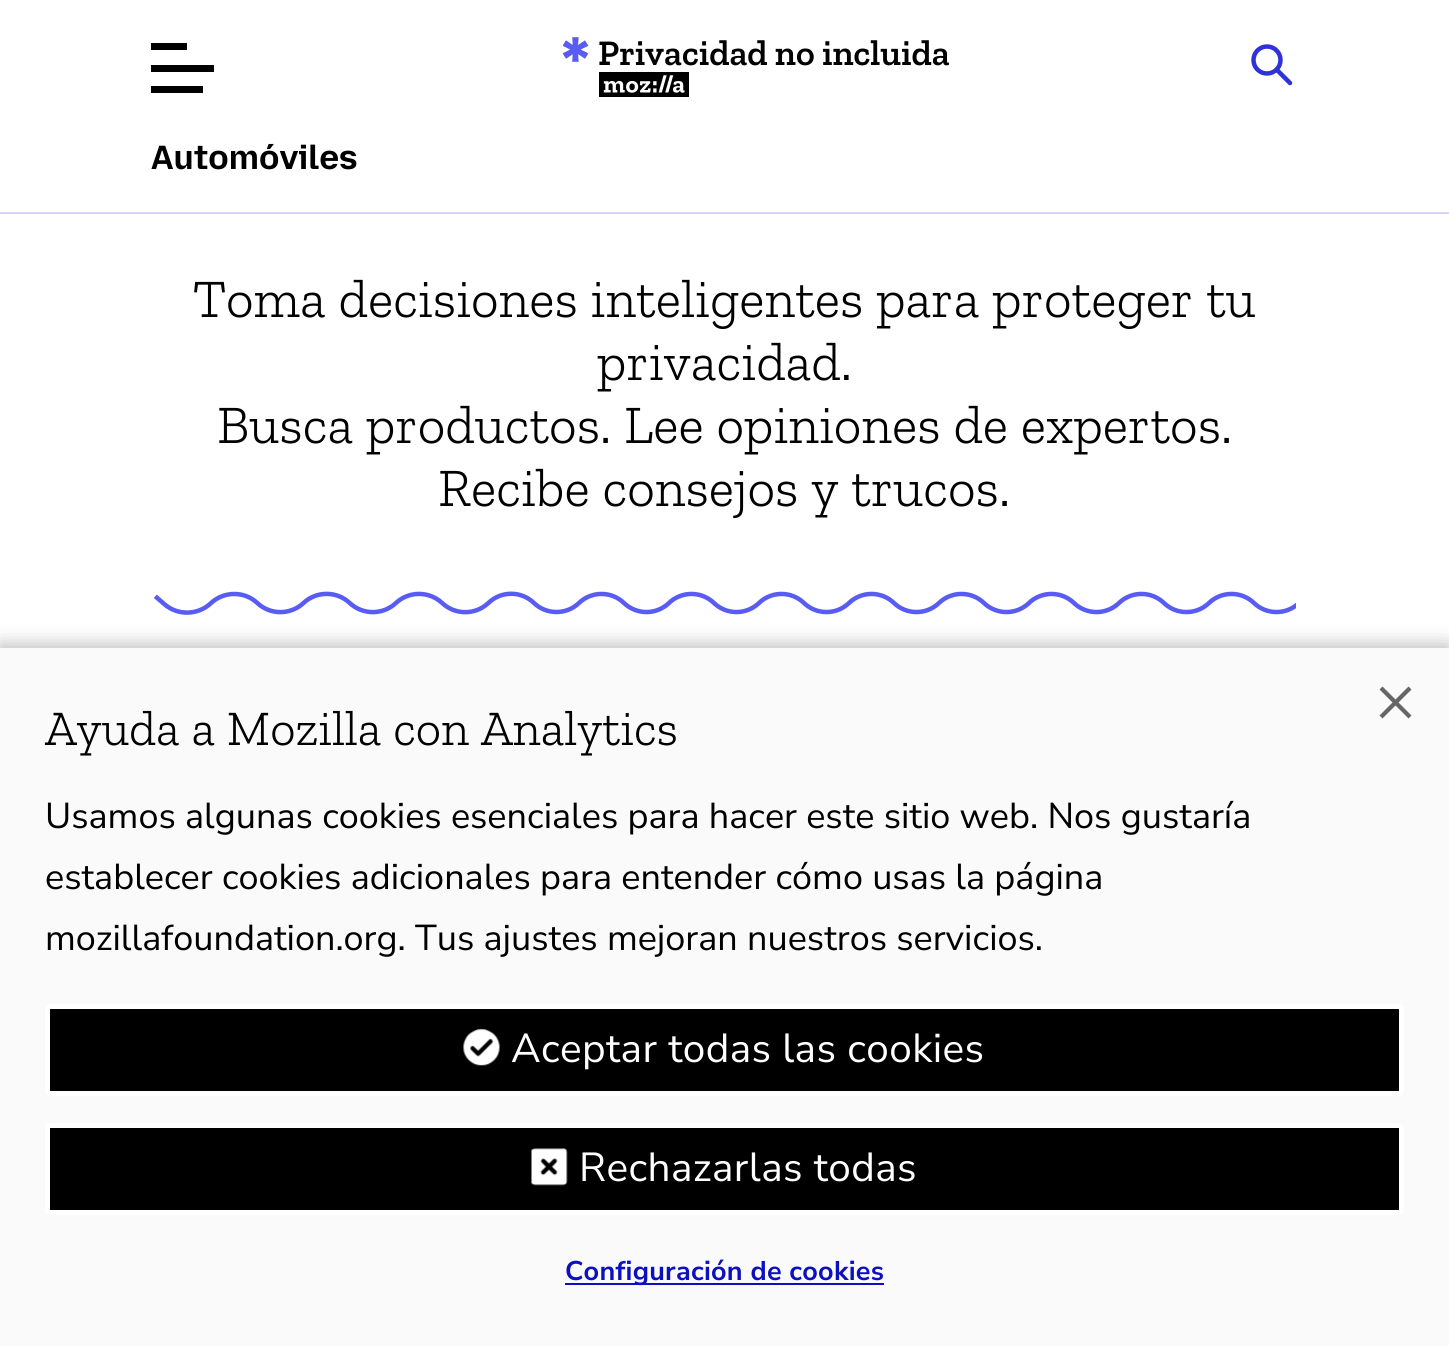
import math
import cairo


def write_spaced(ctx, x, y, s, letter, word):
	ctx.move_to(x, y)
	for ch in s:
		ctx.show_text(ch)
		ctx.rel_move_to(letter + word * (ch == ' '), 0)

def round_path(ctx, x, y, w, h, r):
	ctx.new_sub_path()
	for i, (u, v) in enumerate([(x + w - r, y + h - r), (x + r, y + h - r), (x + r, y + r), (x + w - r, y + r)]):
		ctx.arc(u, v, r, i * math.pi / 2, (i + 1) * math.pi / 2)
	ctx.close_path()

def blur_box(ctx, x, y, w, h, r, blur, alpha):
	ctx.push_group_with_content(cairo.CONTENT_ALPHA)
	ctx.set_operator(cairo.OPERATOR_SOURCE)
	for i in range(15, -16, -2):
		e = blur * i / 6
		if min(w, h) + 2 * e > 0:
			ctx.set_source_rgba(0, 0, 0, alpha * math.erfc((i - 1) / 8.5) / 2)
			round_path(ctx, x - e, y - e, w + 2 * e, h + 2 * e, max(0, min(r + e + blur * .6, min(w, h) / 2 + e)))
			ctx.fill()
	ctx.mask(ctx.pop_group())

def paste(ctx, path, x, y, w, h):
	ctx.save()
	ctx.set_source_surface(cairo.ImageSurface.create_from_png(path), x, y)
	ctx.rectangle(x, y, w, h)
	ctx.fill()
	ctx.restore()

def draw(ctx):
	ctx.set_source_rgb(1, 1, 1)
	ctx.paint()
	ctx.set_source_rgb(0, 0, 0)
	ctx.rectangle(151, 43, 36, 7)
	ctx.rectangle(151, 65, 63, 7)
	ctx.rectangle(151, 86, 52, 7)
	ctx.fill()
	paste(ctx, 'media/1.png', 563, 37, 26, 25)
	ctx.select_font_face('Zilla Slab SemiBold')
	ctx.set_font_size(36)
	ctx.move_to(598, 65)
	ctx.show_text('Privacidad no incluida')
	paste(ctx, 'media/2.png', 599, 72, 90, 25)
	ctx.arc(1267, 60, 13.5, 0, 2 * math.pi)
	ctx.set_source_rgb(0.188, 0.196, 0.851)
	ctx.set_line_width(4.5)
	ctx.stroke()
	ctx.new_path()
	ctx.move_to(1290, 83)
	ctx.line_to(1277, 70)
	ctx.set_line_cap(cairo.LINE_CAP_ROUND)
	ctx.set_line_join(cairo.LINE_JOIN_ROUND)
	ctx.stroke()
	ctx.set_source_rgb(0.827, 0.835, 0.988)
	ctx.rectangle(0, 212, 1449, 2)
	ctx.fill()
	ctx.select_font_face('Mozilla Text', cairo.FONT_SLANT_NORMAL, cairo.FONT_WEIGHT_BOLD)
	ctx.set_font_size(33.75)
	ctx.set_source_rgb(0, 0, 0)
	ctx.move_to(151, 169)
	ctx.show_text('Automóviles')
	ctx.select_font_face('Zilla Slab Light')
	ctx.set_font_size(54)
	for x, y, s in [
		(193, 317, 'Toma decisiones inteligentes para proteger tu'),
		(597, 380, 'privacidad.'),
		(217, 443, 'Busca productos. Lee opiniones de expertos.'),
		(438, 506, 'Recibe consejos y trucos.'),
	]:
		ctx.move_to(x, y)
		ctx.show_text(s)
	paste(ctx, 'media/3.png', 153, 591, 1143, 24)
	ctx.set_source_rgb(0, 0, 0)
	blur_box(ctx, 0, 644, 1449, 699, 0, 9, 0.25)
	ctx.set_source_rgb(0.98, 0.98, 0.98)
	ctx.rectangle(0, 648, 1449, 698)
	ctx.fill()
	ctx.set_source_rgb(0.4, 0.4, 0.4)
	ctx.set_fill_rule(cairo.FILL_RULE_EVEN_ODD)
	ctx.new_path()
	ctx.move_to(1379.5, 715.5)
	ctx.line_to(1408.5, 686.5)
	ctx.line_to(1411.5, 689.5)
	ctx.line_to(1382.5, 718.5)
	ctx.close_path()
	ctx.fill()
	ctx.new_path()
	ctx.move_to(1411.5, 715.5)
	ctx.line_to(1382.5, 686.5)
	ctx.line_to(1379.5, 689.5)
	ctx.line_to(1408.5, 718.5)
	ctx.close_path()
	ctx.fill()
	ctx.set_font_size(49.5)
	ctx.set_source_rgb(0, 0, 0)
	ctx.move_to(45, 745)
	ctx.show_text('Ayuda a Mozilla con Analytics')
	ctx.select_font_face('Nunito Sans')
	ctx.set_font_size(36)
	for x, y, s in [
		(45, 828, 'Usamos algunas cookies esenciales para hacer este sitio web. Nos gustaría'),
		(45, 889, 'establecer cookies adicionales para entender cómo usas la página'),
		(45, 950, 'mozillafoundation.org. Tus ajustes mejoran nuestros servicios.'),
	]:
		ctx.move_to(x, y)
		ctx.show_text(s)
	round_path(ctx, 47.5, 1006.5, 1354, 87, 2.5)
	ctx.fill_preserve()
	ctx.set_source_rgb(1, 1, 1)
	ctx.set_line_width(5)
	ctx.set_line_cap(cairo.LINE_CAP_BUTT)
	ctx.set_line_join(cairo.LINE_JOIN_MITER)
	ctx.stroke()
	paste(ctx, 'media/4.png', 463, 1029, 37, 37)
	ctx.set_font_size(40.5)
	write_spaced(ctx, 511, 1062, 'Aceptar todas las cookies', 0.4, 0)
	ctx.set_source_rgb(0, 0, 0)
	round_path(ctx, 47.5, 1125.5, 1354, 87, 2.5)
	ctx.fill_preserve()
	ctx.set_source_rgb(1, 1, 1)
	ctx.stroke()
	paste(ctx, 'media/5.png', 531, 1148, 37, 38)
	write_spaced(ctx, 579, 1181, 'Rechazarlas todas', 0.4, 0)
	ctx.set_source_rgb(0.051, 0.063, 0.749)
	ctx.rectangle(565, 1283, 319, 2)
	ctx.fill()
	ctx.select_font_face('Nunito Sans', cairo.FONT_SLANT_NORMAL, cairo.FONT_WEIGHT_BOLD)
	ctx.set_font_size(27)
	write_spaced(ctx, 565, 1280, 'Configuración de cookies', 0.25, 0)


surface = cairo.ImageSurface(cairo.FORMAT_RGB24, 1449, 1346)
ctx = cairo.Context(surface)
options = cairo.FontOptions()
options.set_hint_metrics(cairo.HINT_METRICS_OFF)
options.set_hint_style(cairo.HINT_STYLE_NONE)
ctx.set_font_options(options)
ctx.set_miter_limit(4)
draw(ctx)
surface.write_to_png('image.png')
